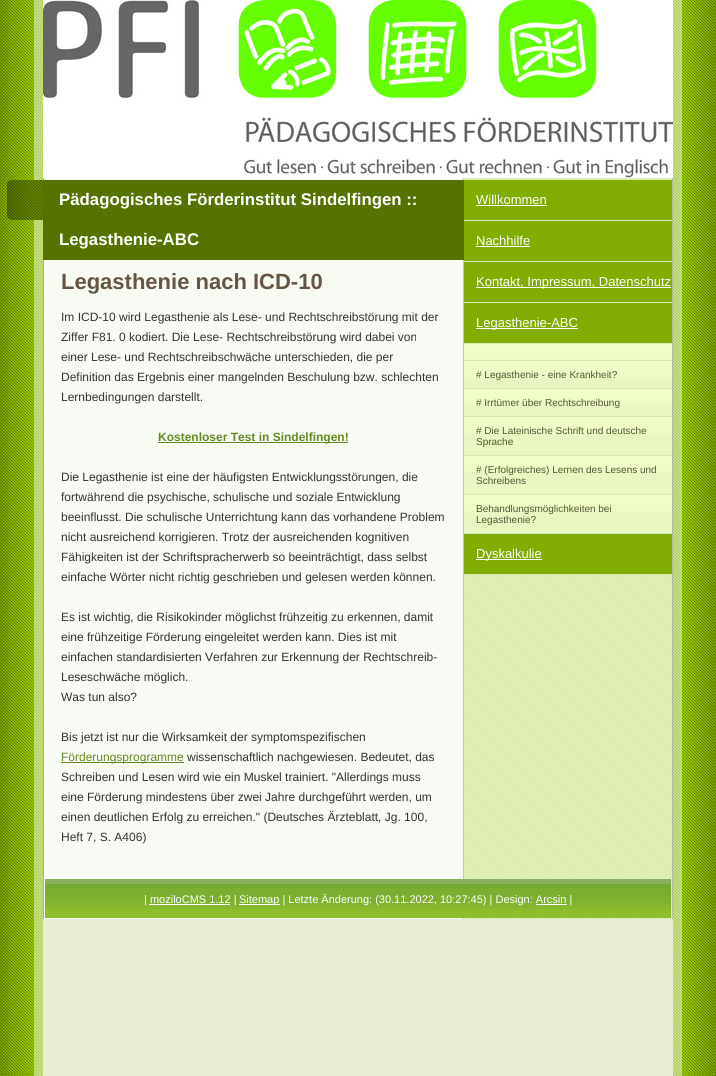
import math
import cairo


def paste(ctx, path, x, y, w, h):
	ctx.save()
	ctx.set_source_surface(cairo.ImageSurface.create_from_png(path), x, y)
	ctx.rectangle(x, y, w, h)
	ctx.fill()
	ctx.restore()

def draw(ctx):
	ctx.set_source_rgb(1, 1, 1)
	ctx.paint()
	paste(ctx, 'media/1.png', 0, 0, 716, 1076)
	paste(ctx, 'media/2.png', 43, 178, 630, 741)
	paste(ctx, 'media/3.png', 43, 0, 630, 178)
	paste(ctx, 'media/4.png', 7, 180, 36, 40)
	ctx.set_source_rgb(0.337, 0.451, 0)
	ctx.rectangle(43, 180, 421, 80)
	ctx.fill()
	ctx.select_font_face('Liberation Sans', cairo.FONT_SLANT_NORMAL, cairo.FONT_WEIGHT_BOLD)
	ctx.set_font_size(16.8)
	ctx.set_source_rgb(1, 1, 1)
	ctx.move_to(59, 205)
	ctx.show_text('Pädagogisches Förderinstitut Sindelfingen ::')
	ctx.move_to(59, 245)
	ctx.show_text('Legasthenie-ABC')
	ctx.set_font_size(22)
	ctx.set_source_rgb(0.4, 0.333, 0.267)
	ctx.move_to(61, 289)
	ctx.show_text('Legasthenie nach ICD-10')
	ctx.select_font_face('Liberation Sans')
	ctx.set_font_size(12)
	ctx.set_source_rgb(0.2, 0.2, 0.2)
	for x, y, s in [
		(61, 321, 'Im ICD-10 wird Legasthenie als Lese- und Rechtschreibstörung mit der'),
		(61, 341, 'Ziffer F81. 0 kodiert. Die Lese- Rechtschreibstörung wird dabei von'),
		(61, 361, 'einer Lese- und Rechtschreibschwäche unterschieden, die per'),
		(61, 381, 'Definition das Ergebnis einer mangelnden Beschulung bzw. schlechten'),
		(61, 401, 'Lernbedingungen darstellt.'),
	]:
		ctx.move_to(x, y)
		ctx.show_text(s)
	ctx.set_source_rgb(0.4, 0.533, 0.133)
	ctx.rectangle(158, 442, 190, 1)
	ctx.fill()
	ctx.select_font_face('Liberation Sans', cairo.FONT_SLANT_NORMAL, cairo.FONT_WEIGHT_BOLD)
	ctx.move_to(158, 441)
	ctx.show_text('Kostenloser Test in Sindelfingen!')
	ctx.select_font_face('Liberation Sans')
	ctx.set_source_rgb(0.2, 0.2, 0.2)
	for x, y, s in [
		(61, 481, 'Die Legasthenie ist eine der häufigsten Entwicklungsstörungen, die'),
		(61, 501, 'fortwährend die psychische, schulische und soziale Entwicklung'),
		(61, 521, 'beeinflusst. Die schulische Unterrichtung kann das vorhandene Problem'),
		(61, 541, 'nicht ausreichend korrigieren. Trotz der ausreichenden kognitiven'),
		(61, 561, 'Fähigkeiten ist der Schriftspracherwerb so beeinträchtigt, dass selbst'),
		(61, 581, 'einfache Wörter nicht richtig geschrieben und gelesen werden können.'),
		(61, 621, 'Es ist wichtig, die Risikokinder möglichst frühzeitig zu erkennen, damit'),
		(61, 641, 'eine frühzeitige Förderung eingeleitet werden kann. Dies ist mit'),
		(61, 661, 'einfachen standardisierten Verfahren zur Erkennung der Rechtschreib-'),
		(61, 681, 'Leseschwäche möglich.'),
		(61, 701, 'Was tun also?'),
		(61, 741, 'Bis jetzt ist nur die Wirksamkeit der symptomspezifischen'),
	]:
		ctx.move_to(x, y)
		ctx.show_text(s)
	ctx.set_source_rgb(0.4, 0.533, 0.133)
	ctx.rectangle(61, 762, 123, 1)
	ctx.fill()
	ctx.move_to(61, 761)
	ctx.show_text('Förderungsprogramme')
	ctx.set_source_rgb(0.2, 0.2, 0.2)
	for x, y, s in [
		(187, 761, 'wissenschaftlich nachgewiesen. Bedeutet, das'),
		(61, 781, 'Schreiben und Lesen wird wie ein Muskel trainiert. "Allerdings muss'),
		(61, 801, 'eine Förderung mindestens über zwei Jahre durchgeführt werden, um'),
		(61, 821, 'einen deutlichen Erfolg zu erreichen." (Deutsches Ärzteblatt, Jg. 100,'),
		(61, 841, 'Heft 7, S. A406)'),
	]:
		ctx.move_to(x, y)
		ctx.show_text(s)
	ctx.set_source_rgb(0.506, 0.675, 0)
	ctx.rectangle(464, 180, 208, 40)
	ctx.fill()
	ctx.set_source_rgb(0.835, 0.91, 0.678)
	ctx.rectangle(464, 220, 208, 1)
	ctx.fill()
	ctx.set_font_size(13)
	ctx.set_source_rgb(1, 1, 1)
	ctx.move_to(476, 204)
	ctx.show_text('Willkommen')
	ctx.rectangle(476, 205, 71, 1)
	ctx.fill()
	ctx.set_source_rgb(0.506, 0.675, 0)
	ctx.rectangle(464, 221, 208, 40)
	ctx.fill()
	ctx.set_source_rgb(0.835, 0.91, 0.678)
	ctx.rectangle(464, 261, 208, 1)
	ctx.fill()
	ctx.set_source_rgb(1, 1, 1)
	ctx.move_to(476, 245)
	ctx.show_text('Nachhilfe')
	ctx.rectangle(476, 246, 54, 1)
	ctx.fill()
	ctx.set_source_rgb(0.506, 0.675, 0)
	ctx.rectangle(464, 262, 208, 40)
	ctx.fill()
	ctx.set_source_rgb(0.835, 0.91, 0.678)
	ctx.rectangle(464, 302, 208, 1)
	ctx.fill()
	ctx.set_source_rgb(1, 1, 1)
	ctx.rectangle(476, 287, 195, 1)
	ctx.fill()
	ctx.move_to(476, 286)
	ctx.show_text('Kontakt, Impressum, Datenschutz')
	ctx.set_source_rgb(0.506, 0.675, 0)
	ctx.rectangle(464, 303, 208, 40)
	ctx.fill()
	ctx.set_source_rgb(0.835, 0.91, 0.678)
	ctx.rectangle(464, 343, 208, 1)
	ctx.fill()
	ctx.set_source_rgb(1, 1, 1)
	ctx.rectangle(476, 328, 102, 1)
	ctx.fill()
	ctx.move_to(476, 327)
	ctx.show_text('Legasthenie-ABC')
	paste(ctx, 'media/5.png', 464, 344, 208, 16)
	ctx.set_source_rgb(0.835, 0.91, 0.678)
	ctx.rectangle(464, 360, 208, 1)
	ctx.fill()
	ctx.set_source_rgb(0.91, 0.965, 0.749)
	ctx.rectangle(464, 378, 208, 10)
	ctx.fill()
	paste(ctx, 'media/6.png', 464, 361, 208, 17)
	ctx.set_source_rgb(0.835, 0.91, 0.678)
	ctx.rectangle(464, 388, 208, 1)
	ctx.fill()
	ctx.set_font_size(10)
	ctx.set_source_rgb(0.333, 0.333, 0.2)
	ctx.move_to(476, 378)
	ctx.show_text('# Legasthenie - eine Krankheit?')
	ctx.set_source_rgb(0.91, 0.965, 0.749)
	ctx.rectangle(464, 406, 208, 10)
	ctx.fill()
	paste(ctx, 'media/6.png', 464, 389, 208, 17)
	ctx.set_source_rgb(0.835, 0.91, 0.678)
	ctx.rectangle(464, 416, 208, 1)
	ctx.fill()
	ctx.set_source_rgb(0.333, 0.333, 0.2)
	ctx.move_to(476, 406)
	ctx.show_text('# Irrtümer über Rechtschreibung')
	ctx.set_source_rgb(0.91, 0.965, 0.749)
	ctx.rectangle(464, 434, 208, 21)
	ctx.fill()
	paste(ctx, 'media/6.png', 464, 417, 208, 17)
	ctx.set_source_rgb(0.835, 0.91, 0.678)
	ctx.rectangle(464, 455, 208, 1)
	ctx.fill()
	ctx.set_source_rgb(0.333, 0.333, 0.2)
	ctx.move_to(476, 434)
	ctx.show_text('# Die Lateinische Schrift und deutsche')
	ctx.move_to(476, 445)
	ctx.show_text('Sprache')
	ctx.set_source_rgb(0.91, 0.965, 0.749)
	ctx.rectangle(464, 473, 208, 21)
	ctx.fill()
	paste(ctx, 'media/6.png', 464, 456, 208, 17)
	ctx.set_source_rgb(0.835, 0.91, 0.678)
	ctx.rectangle(464, 494, 208, 1)
	ctx.fill()
	ctx.set_source_rgb(0.333, 0.333, 0.2)
	ctx.move_to(476, 473)
	ctx.show_text('# (Erfolgreiches) Lernen des Lesens und')
	ctx.move_to(476, 484)
	ctx.show_text('Schreibens')
	ctx.set_source_rgb(0.91, 0.965, 0.749)
	ctx.rectangle(464, 512, 208, 21)
	ctx.fill()
	paste(ctx, 'media/6.png', 464, 495, 208, 17)
	ctx.set_source_rgb(0.835, 0.91, 0.678)
	ctx.rectangle(464, 533, 208, 1)
	ctx.fill()
	ctx.set_source_rgb(0.333, 0.333, 0.2)
	ctx.move_to(476, 512)
	ctx.show_text('Behandlungsmöglichkeiten bei')
	ctx.move_to(476, 523)
	ctx.show_text('Legasthenie?')
	ctx.set_source_rgb(0.506, 0.675, 0)
	ctx.rectangle(464, 534, 208, 40)
	ctx.fill()
	ctx.set_source_rgb(0.835, 0.91, 0.678)
	ctx.rectangle(464, 574, 208, 1)
	ctx.fill()
	ctx.set_source_rgb(1, 1, 1)
	ctx.rectangle(476, 559, 66, 1)
	ctx.fill()
	ctx.set_font_size(13)
	ctx.move_to(476, 558)
	ctx.show_text('Dyskalkulie')
	paste(ctx, 'media/7.png', 45, 879, 626, 39)
	ctx.set_font_size(11)
	ctx.move_to(144, 903)
	ctx.show_text('| moziloCMS 1.12 |')
	ctx.rectangle(239, 904, 41, 1)
	ctx.fill()
	ctx.move_to(239, 903)
	ctx.show_text('Sitemap | Letzte Änderung: (30.11.2022, 10:27:45) | Design: Arcsin |')
	ctx.rectangle(149, 904, 81, 1)
	ctx.fill()
	ctx.rectangle(536, 904, 31, 1)
	ctx.fill()


surface = cairo.ImageSurface(cairo.FORMAT_RGB24, 716, 1076)
ctx = cairo.Context(surface)
options = cairo.FontOptions()
options.set_hint_metrics(cairo.HINT_METRICS_OFF)
options.set_hint_style(cairo.HINT_STYLE_NONE)
ctx.set_font_options(options)
ctx.set_miter_limit(4)
draw(ctx)
surface.write_to_png('image.png')
